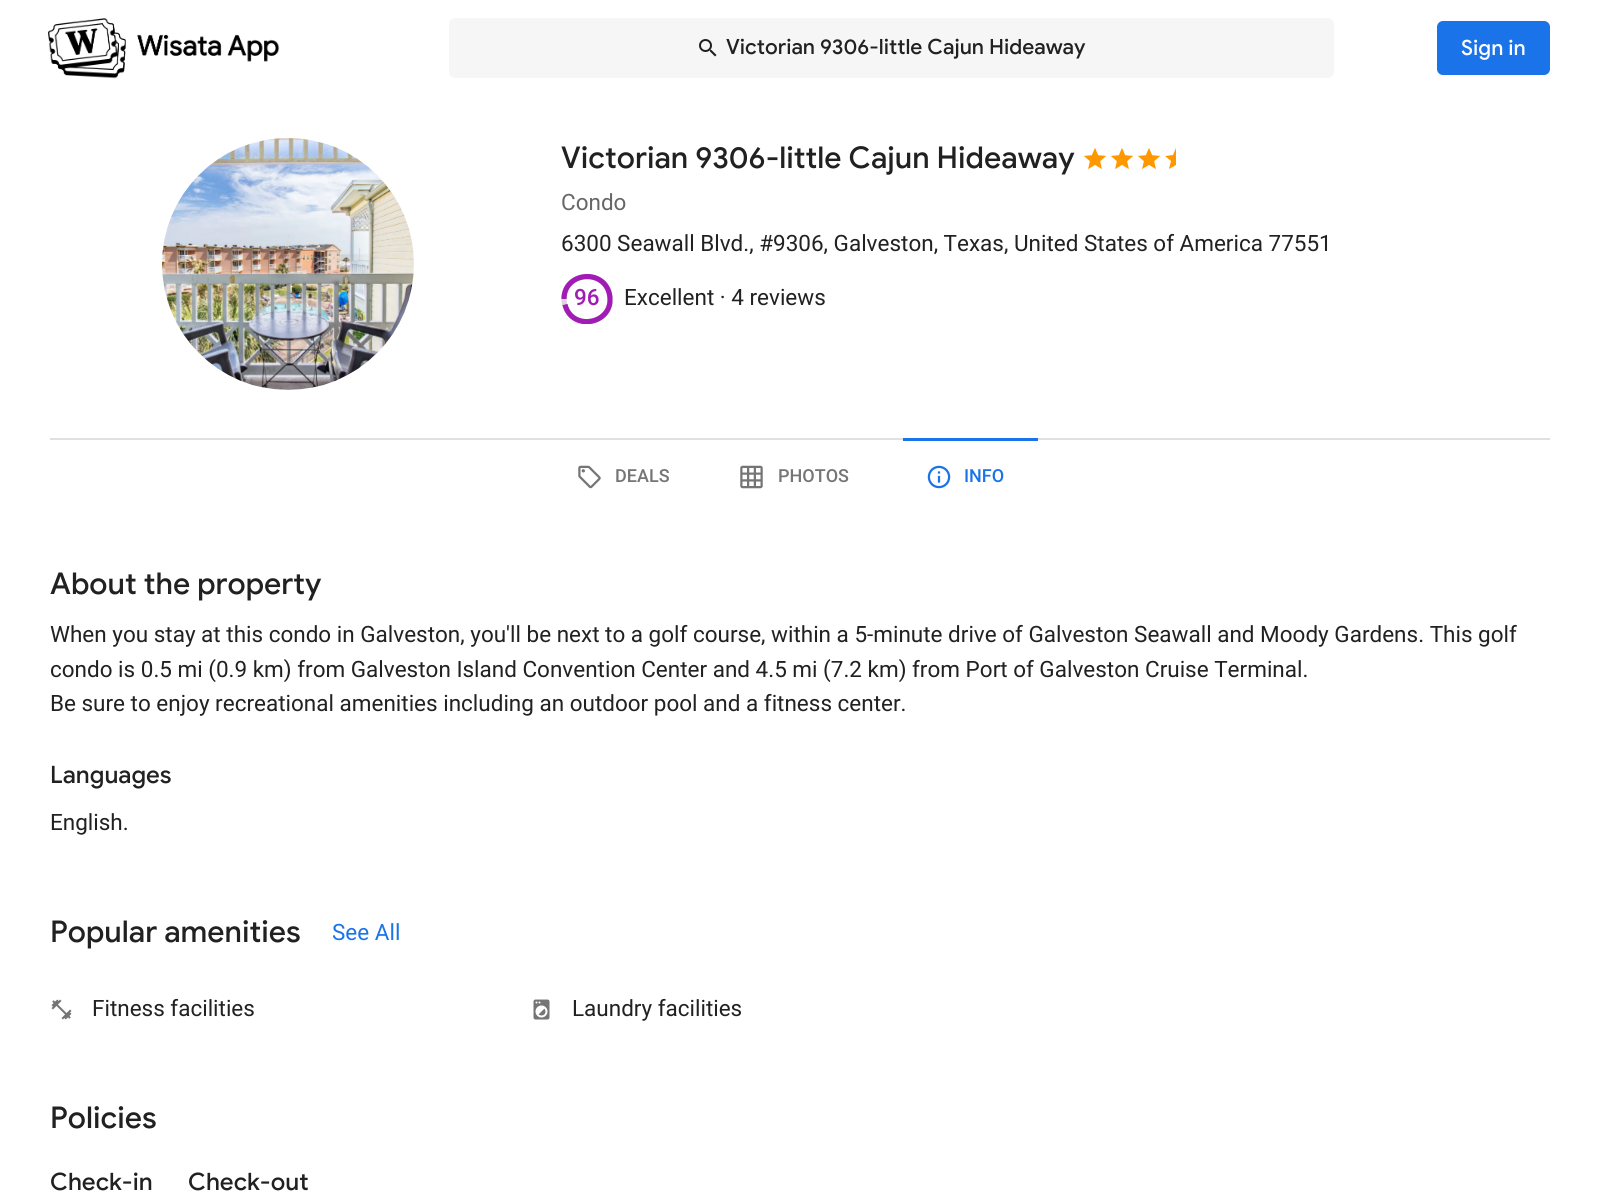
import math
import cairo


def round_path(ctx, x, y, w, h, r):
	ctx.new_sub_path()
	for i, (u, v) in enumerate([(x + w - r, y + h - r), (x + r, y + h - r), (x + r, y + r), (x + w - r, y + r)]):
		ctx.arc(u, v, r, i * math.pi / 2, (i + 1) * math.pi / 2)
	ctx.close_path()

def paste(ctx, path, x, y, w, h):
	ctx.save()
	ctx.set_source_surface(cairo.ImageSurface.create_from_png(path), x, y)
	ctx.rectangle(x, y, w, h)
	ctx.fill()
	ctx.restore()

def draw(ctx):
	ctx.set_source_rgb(1, 1, 1)
	ctx.paint()
	paste(ctx, 'media/1.png', 48, 18, 232, 61)
	ctx.set_source_rgb(0.961, 0.961, 0.961)
	round_path(ctx, 449, 18, 885, 60, 6)
	ctx.fill()
	paste(ctx, 'media/2.png', 699, 39, 18, 18)
	ctx.select_font_face('Google Sans Medium')
	ctx.set_font_size(21)
	ctx.set_source_rgb(0.129, 0.129, 0.129)
	ctx.move_to(726, 54)
	ctx.show_text('Victorian 9306-little Cajun Hideaway')
	ctx.set_source_rgb(0.102, 0.451, 0.91)
	round_path(ctx, 1437, 21, 113, 54, 6)
	ctx.fill()
	ctx.set_source_rgb(1, 1, 1)
	ctx.move_to(1461, 55)
	ctx.show_text('Sign in')
	paste(ctx, 'media/3.png', 162, 138, 252, 252)
	ctx.set_font_size(30)
	ctx.set_source_rgb(0.129, 0.129, 0.129)
	ctx.move_to(561, 168)
	ctx.show_text('Victorian 9306-little Cajun Hideaway')
	paste(ctx, 'media/4.png', 1083, 148, 24, 21)
	paste(ctx, 'media/4.png', 1110, 148, 24, 21)
	paste(ctx, 'media/4.png', 1137, 148, 24, 21)
	ctx.set_source_rgb(1, 0.596, 0)
	ctx.new_path()
	ctx.move_to(1176, 148)
	ctx.line_to(1173, 155)
	ctx.line_to(1165, 156)
	ctx.line_to(1171, 161)
	ctx.line_to(1169, 169)
	ctx.line_to(1176, 165)
	ctx.close_path()
	ctx.fill()
	ctx.select_font_face('Roboto')
	ctx.set_font_size(22.5)
	ctx.set_source_rgb(0.4, 0.4, 0.4)
	ctx.move_to(561, 210)
	ctx.show_text('Condo')
	ctx.set_source_rgb(0.129, 0.129, 0.129)
	ctx.move_to(561, 251)
	ctx.show_text('6300 Seawall Blvd., #9306, Galveston, Texas, United States of America 77551')
	ctx.select_font_face('Roboto Medium')
	ctx.set_source_rgb(0.631, 0.11, 0.706)
	ctx.move_to(574, 305)
	ctx.show_text('96')
	ctx.save()
	ctx.new_path()
	ctx.move_to(561.5, 324)
	ctx.line_to(561.5, 273)
	ctx.line_to(612.5, 273)
	ctx.line_to(612.5, 324)
	ctx.close_path()
	ctx.clip()
	ctx.new_path()
	ctx.move_to(564, 299)
	ctx.curve_to(564, 269, 610, 269, 610, 299)
	ctx.curve_to(610, 329, 564, 329, 564, 299)
	ctx.set_source_rgb(0.847, 0.847, 0.847)
	ctx.set_line_width(5.2)
	ctx.stroke()
	ctx.new_path()
	ctx.move_to(564, 299)
	ctx.curve_to(564, 272, 604, 268, 609.5, 294.5)
	ctx.curve_to(615.5, 323.5, 572, 333, 565, 304.5)
	ctx.set_source_rgb(0.631, 0.11, 0.706)
	ctx.stroke()
	ctx.restore()
	ctx.select_font_face('Roboto')
	ctx.set_source_rgb(0.129, 0.129, 0.129)
	ctx.move_to(624, 305)
	ctx.show_text('Excellent · 4 reviews')
	ctx.set_source_rgb(0.878, 0.878, 0.878)
	ctx.rectangle(50, 438, 1500, 2)
	ctx.fill()
	ctx.set_source_rgb(0.102, 0.451, 0.91)
	ctx.rectangle(903, 438, 135, 3)
	ctx.fill()
	paste(ctx, 'media/5.png', 578, 465, 23, 24)
	ctx.select_font_face('Roboto Medium')
	ctx.set_font_size(18)
	ctx.set_source_rgb(0.459, 0.459, 0.459)
	ctx.move_to(615, 482)
	ctx.show_text('DEALS')
	paste(ctx, 'media/6.png', 740, 465, 23, 24)
	ctx.move_to(778, 482)
	ctx.show_text('PHOTOS')
	paste(ctx, 'media/7.png', 927, 465, 24, 24)
	ctx.set_source_rgb(0.102, 0.451, 0.91)
	ctx.move_to(964, 482)
	ctx.show_text('INFO')
	ctx.select_font_face('Google Sans Medium')
	ctx.set_font_size(30)
	ctx.set_source_rgb(0.129, 0.129, 0.129)
	ctx.move_to(50, 594)
	ctx.show_text('About the property')
	ctx.select_font_face('Roboto')
	ctx.set_font_size(22.5)
	for x, y, s in [
		(50, 642, 'When you stay at this condo in Galveston, you\'ll be next to a golf course, within a 5-minute drive of Galveston Seawall and Moody Gardens. This golf'),
		(50, 677, 'condo is 0.5 mi (0.9 km) from Galveston Island Convention Center and 4.5 mi (7.2 km) from Port of Galveston Cruise Terminal.'),
		(50, 711, 'Be sure to enjoy recreational amenities including an outdoor pool and a fitness center.'),
	]:
		ctx.move_to(x, y)
		ctx.show_text(s)
	ctx.select_font_face('Google Sans Medium')
	ctx.set_font_size(24)
	ctx.move_to(50, 783)
	ctx.show_text('Languages')
	ctx.select_font_face('Roboto')
	ctx.set_font_size(22.5)
	ctx.move_to(50, 830)
	ctx.show_text('English.')
	ctx.select_font_face('Google Sans Medium')
	ctx.set_font_size(30)
	ctx.move_to(50, 942)
	ctx.show_text('Popular amenities')
	ctx.select_font_face('Roboto')
	ctx.set_font_size(22.5)
	ctx.set_source_rgb(0.102, 0.451, 0.91)
	ctx.move_to(332, 940)
	ctx.show_text('See All')
	paste(ctx, 'media/8.png', 51, 999, 21, 21)
	ctx.set_source_rgb(0.129, 0.129, 0.129)
	ctx.move_to(92, 1016)
	ctx.show_text('Fitness facilities')
	paste(ctx, 'media/9.png', 533, 999, 17, 21)
	ctx.move_to(572, 1016)
	ctx.show_text('Laundry facilities')
	ctx.select_font_face('Google Sans Medium')
	ctx.set_font_size(30)
	ctx.move_to(50, 1128)
	ctx.show_text('Policies')
	ctx.set_font_size(24)
	ctx.move_to(50, 1190)
	ctx.show_text('Check-in')
	ctx.move_to(188, 1190)
	ctx.show_text('Check-out')


surface = cairo.ImageSurface(cairo.FORMAT_RGB24, 1599, 1196)
ctx = cairo.Context(surface)
options = cairo.FontOptions()
options.set_hint_metrics(cairo.HINT_METRICS_OFF)
options.set_hint_style(cairo.HINT_STYLE_NONE)
ctx.set_font_options(options)
ctx.set_miter_limit(4)
draw(ctx)
surface.write_to_png('image.png')
